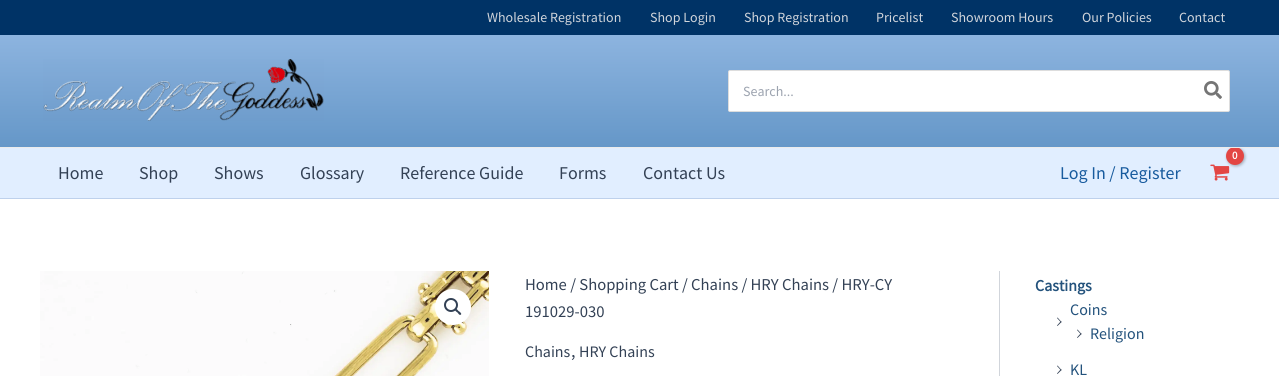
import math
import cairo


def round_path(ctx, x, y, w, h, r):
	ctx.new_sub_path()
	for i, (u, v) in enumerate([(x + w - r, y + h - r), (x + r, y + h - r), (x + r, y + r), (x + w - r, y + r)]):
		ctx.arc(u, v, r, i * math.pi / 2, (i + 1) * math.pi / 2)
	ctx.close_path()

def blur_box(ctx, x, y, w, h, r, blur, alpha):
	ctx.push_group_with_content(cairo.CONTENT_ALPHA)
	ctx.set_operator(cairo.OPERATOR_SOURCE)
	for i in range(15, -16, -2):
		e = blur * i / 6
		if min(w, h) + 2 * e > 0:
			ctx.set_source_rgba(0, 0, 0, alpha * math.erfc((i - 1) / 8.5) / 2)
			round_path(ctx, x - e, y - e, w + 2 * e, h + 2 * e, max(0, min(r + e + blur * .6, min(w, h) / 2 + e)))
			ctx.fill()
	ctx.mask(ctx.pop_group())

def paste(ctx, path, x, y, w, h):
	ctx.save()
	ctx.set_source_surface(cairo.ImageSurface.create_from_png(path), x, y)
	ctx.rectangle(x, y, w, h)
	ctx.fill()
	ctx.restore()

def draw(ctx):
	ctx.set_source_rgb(1, 1, 1)
	ctx.paint()
	ctx.set_source_rgb(0, 0.2, 0.4)
	ctx.rectangle(0, 0, 1279, 35)
	ctx.fill()
	ctx.select_font_face('Source Sans Pro')
	ctx.set_font_size(14)
	ctx.set_source_rgb(0.82, 0.835, 0.859)
	for x, y, s in [
		(487, 22, 'Wholesale Registration'),
		(650, 22, 'Shop Login'),
		(744, 22, 'Shop Registration'),
		(876, 22, 'Pricelist'),
		(951, 22, 'Showroom Hours'),
		(1082, 22, 'Our Policies'),
		(1179, 22, 'Contact'),
	]:
		ctx.move_to(x, y)
		ctx.show_text(s)
	ctx.set_source_rgb(0.882, 0.933, 1)
	ctx.rectangle(0, 148, 1279, 50)
	ctx.fill()
	paste(ctx, 'media/3.png', 1210, 164, 20, 17)
	ctx.set_source_rgb(0, 0, 0)
	blur_box(ctx, 1227, 148, 18, 18, 9, 1.5, 0.3)
	gradient = cairo.LinearGradient(640, 35, 640, 147)
	gradient.add_color_stop_rgba(0, 0.553, 0.706, 0.875, 1)
	gradient.add_color_stop_rgba(1, 0.396, 0.592, 0.784, 1)
	ctx.set_source(gradient)
	ctx.rectangle(0, 35, 1279, 112)
	ctx.fill()
	ctx.set_source_rgb(0.89, 0.275, 0.267)
	ctx.arc(1235, 156, 9, 0, 2 * math.pi)
	ctx.fill()
	ctx.set_source_rgb(0.918, 0.918, 0.918)
	ctx.rectangle(0, 147, 1279, 1)
	ctx.fill()
	paste(ctx, 'media/1.png', 43, 59, 281, 62)
	ctx.set_source_rgb(1, 1, 1)
	round_path(ctx, 728.5, 70.5, 501, 41, 1.5)
	ctx.fill_preserve()
	ctx.set_source_rgb(0.867, 0.867, 0.867)
	ctx.set_line_width(1)
	ctx.stroke()
	ctx.set_source_rgb(0.612, 0.639, 0.686)
	ctx.move_to(743, 96)
	ctx.show_text('Search...')
	paste(ctx, 'media/2.png', 1204, 81, 18, 18)
	ctx.set_source_rgb(0.745, 0.82, 0.925)
	ctx.rectangle(0, 198, 1279, 1)
	ctx.fill()
	ctx.set_font_size(18)
	ctx.set_source_rgb(0.2, 0.255, 0.333)
	for x, y, s in [
		(58, 179, 'Home'),
		(139, 179, 'Shop'),
		(214, 179, 'Shows'),
		(300, 179, 'Glossary'),
		(400, 179, 'Reference Guide'),
		(559, 179, 'Forms'),
		(643, 179, 'Contact Us'),
	]:
		ctx.move_to(x, y)
		ctx.show_text(s)
	ctx.select_font_face('Source Sans Pro', cairo.FONT_SLANT_NORMAL, cairo.FONT_WEIGHT_BOLD)
	ctx.set_font_size(11)
	ctx.set_source_rgb(1, 1, 1)
	ctx.move_to(1232, 159)
	ctx.show_text('0')
	ctx.select_font_face('Source Sans Pro')
	ctx.set_font_size(18)
	ctx.set_source_rgb(0.094, 0.357, 0.62)
	ctx.move_to(1060, 179)
	ctx.show_text('Log In / Register')
	ctx.set_source_rgb(0.82, 0.835, 0.859)
	ctx.rectangle(999, 271, 1, 105)
	ctx.fill()
	paste(ctx, 'media/4.png', 40, 271, 449, 105)
	ctx.set_source_rgb(1, 1, 1)
	ctx.arc(453, 307, 18, 0, 2 * math.pi)
	ctx.fill()
	ctx.arc(451, 305, 6, 0, 2 * math.pi)
	ctx.set_source_rgb(0.2, 0.255, 0.333)
	ctx.set_line_width(2)
	ctx.stroke()
	ctx.new_path()
	ctx.move_to(455, 309)
	ctx.curve_to(456.5, 308, 458, 310.5, 458.5, 311)
	ctx.curve_to(459.5, 311.5, 462, 313.5, 461, 314.5)
	ctx.curve_to(459.5, 316, 458, 313, 457.5, 312.5)
	ctx.curve_to(456.5, 312, 454, 310, 455, 309)
	ctx.close_path()
	ctx.fill()
	ctx.set_font_size(16.6)
	ctx.move_to(525, 290)
	ctx.show_text('Home / Shopping Cart / Chains / HRY Chains / HRY-CY')
	ctx.move_to(525, 317)
	ctx.show_text('191029-030')
	ctx.set_font_size(16)
	ctx.move_to(525, 357)
	ctx.show_text('Chains')
	ctx.set_font_size(18)
	ctx.move_to(571, 357)
	ctx.show_text(',')
	ctx.set_font_size(16)
	ctx.move_to(579, 357)
	ctx.show_text('HRY Chains')
	ctx.select_font_face('Source Sans Pro', cairo.FONT_SLANT_NORMAL, cairo.FONT_WEIGHT_BOLD)
	ctx.set_source_rgb(0.137, 0.322, 0.486)
	ctx.move_to(1035, 291)
	ctx.show_text('Castings')
	ctx.select_font_face('Source Sans Pro')
	ctx.move_to(1070, 315)
	ctx.show_text('Coins')
	ctx.set_source_rgb(0.2, 0.255, 0.333)
	ctx.new_path()
	ctx.move_to(1057.5, 317.5)
	ctx.line_to(1061.5, 322)
	ctx.line_to(1061, 322.5)
	ctx.line_to(1057, 318)
	ctx.close_path()
	ctx.fill()
	ctx.new_path()
	ctx.move_to(1061, 321)
	ctx.line_to(1061.5, 322)
	ctx.line_to(1057.5, 326)
	ctx.line_to(1057, 325.5)
	ctx.close_path()
	ctx.fill()
	ctx.new_path()
	ctx.move_to(1077.5, 329.5)
	ctx.line_to(1081.5, 334)
	ctx.line_to(1081, 334.5)
	ctx.line_to(1077, 330)
	ctx.close_path()
	ctx.fill()
	ctx.new_path()
	ctx.move_to(1081, 333)
	ctx.line_to(1081.5, 334)
	ctx.line_to(1077.5, 338)
	ctx.line_to(1077, 337.5)
	ctx.close_path()
	ctx.fill()
	ctx.set_source_rgb(0.137, 0.322, 0.486)
	ctx.move_to(1090, 339)
	ctx.show_text('Religion')
	ctx.set_source_rgb(0.2, 0.255, 0.333)
	ctx.new_path()
	ctx.move_to(1057.5, 365.5)
	ctx.line_to(1061.5, 370)
	ctx.line_to(1061, 370.5)
	ctx.line_to(1057, 366)
	ctx.close_path()
	ctx.fill()
	ctx.new_path()
	ctx.move_to(1061, 369)
	ctx.line_to(1061.5, 370)
	ctx.line_to(1057.5, 374)
	ctx.line_to(1057, 373.5)
	ctx.close_path()
	ctx.fill()
	ctx.set_source_rgb(0.137, 0.322, 0.486)
	ctx.move_to(1070, 375)
	ctx.show_text('KL')


surface = cairo.ImageSurface(cairo.FORMAT_RGB24, 1279, 376)
ctx = cairo.Context(surface)
options = cairo.FontOptions()
options.set_hint_metrics(cairo.HINT_METRICS_OFF)
options.set_hint_style(cairo.HINT_STYLE_NONE)
ctx.set_font_options(options)
ctx.set_miter_limit(4)
draw(ctx)
surface.write_to_png('image.png')
